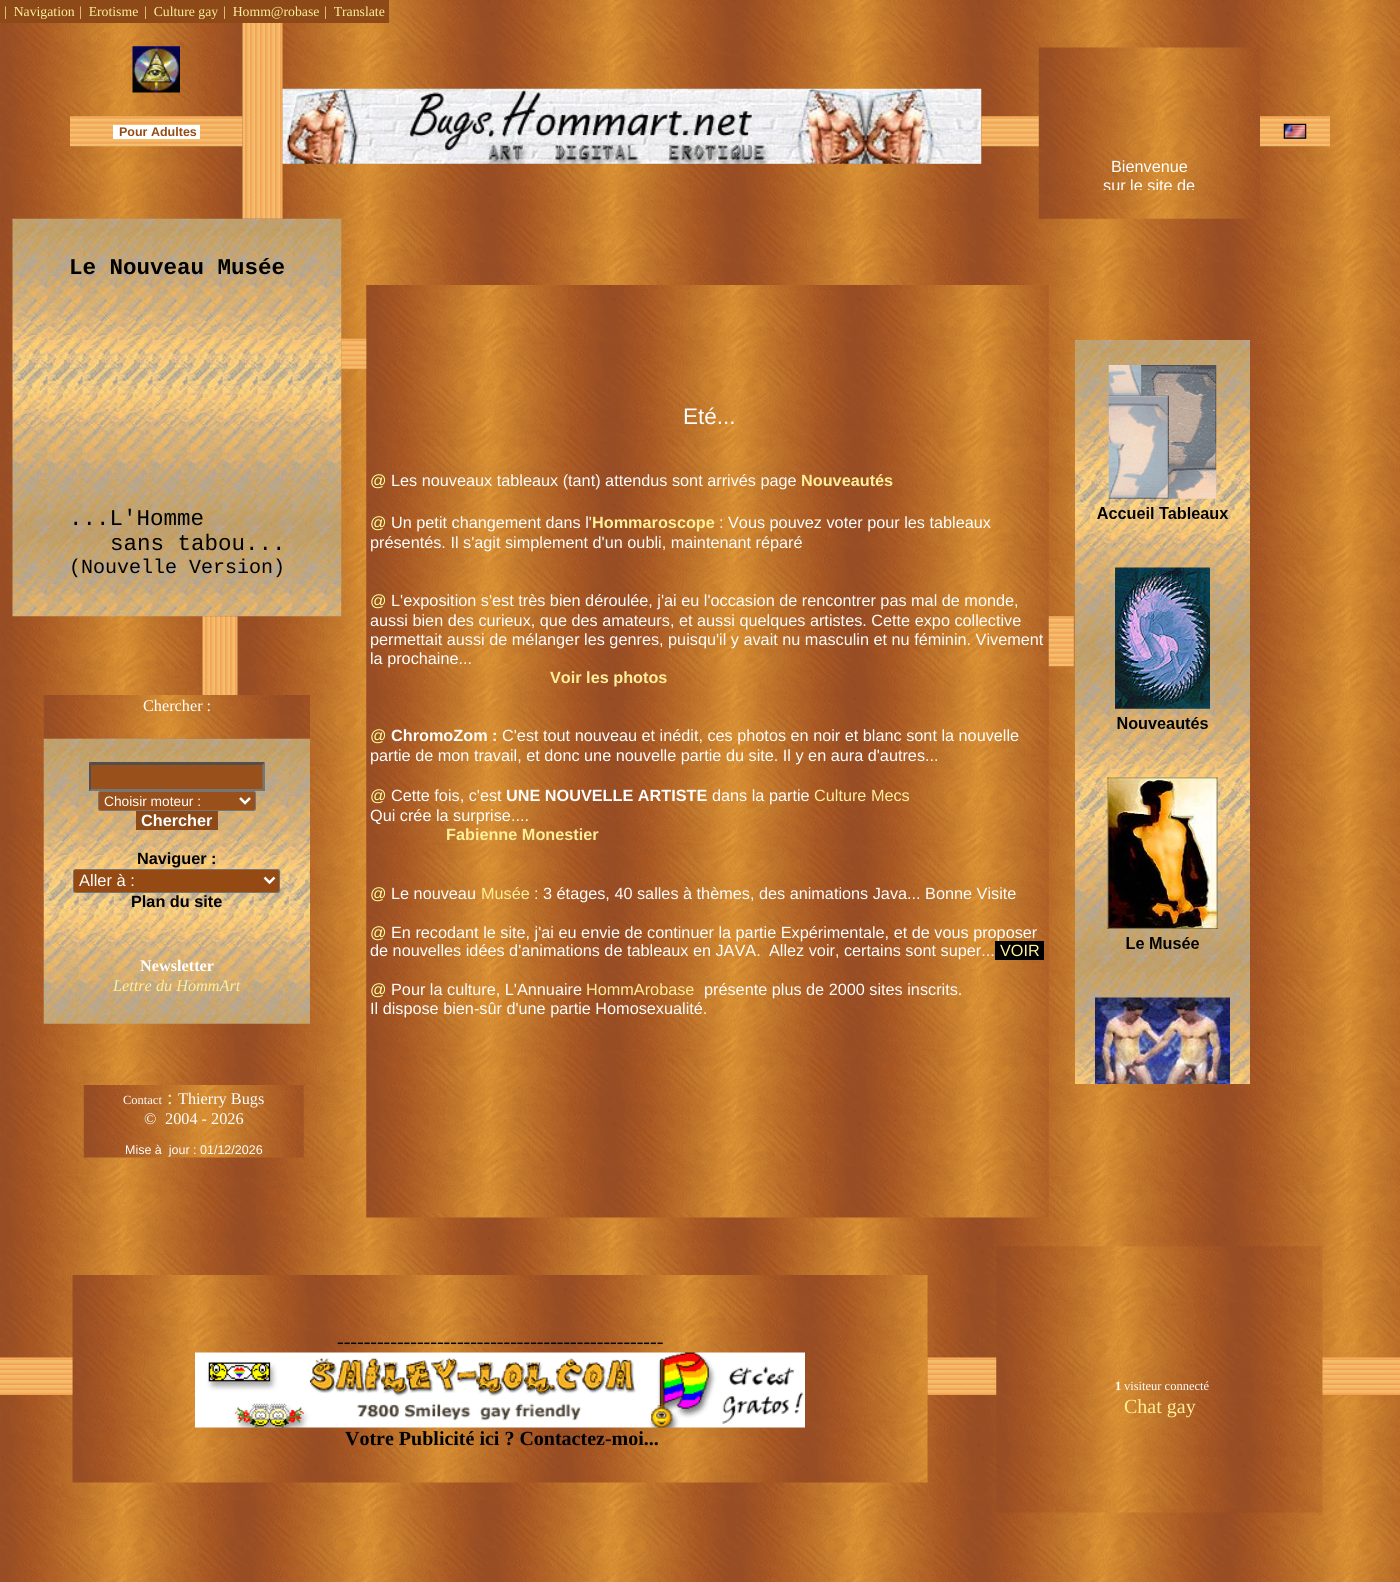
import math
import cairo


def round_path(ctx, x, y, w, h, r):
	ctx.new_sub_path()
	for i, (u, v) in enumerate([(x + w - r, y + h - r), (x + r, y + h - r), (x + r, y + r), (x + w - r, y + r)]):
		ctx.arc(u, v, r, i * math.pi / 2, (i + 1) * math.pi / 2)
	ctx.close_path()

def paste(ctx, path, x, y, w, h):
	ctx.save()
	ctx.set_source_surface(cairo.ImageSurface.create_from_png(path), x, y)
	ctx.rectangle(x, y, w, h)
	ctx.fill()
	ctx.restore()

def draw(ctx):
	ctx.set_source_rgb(1, 1, 1)
	ctx.paint()
	paste(ctx, 'media/1.png', 0, 0, 1400, 1582)
	ctx.set_source_rgb(0.553, 0.29, 0.094)
	ctx.rectangle(0, 0, 389, 23)
	ctx.fill()
	ctx.select_font_face('Liberation Serif')
	ctx.set_font_size(13.75)
	ctx.set_source_rgb(1, 0.941, 0.6)
	for x, y, s in [
		(4, 16, '|  Navigation'),
		(79, 16, '|  Erotisme'),
		(144, 16, '|  Culture gay'),
		(223, 16, '|  Homm@robase'),
		(324, 16, '|  Translate'),
	]:
		ctx.move_to(x, y)
		ctx.show_text(s)
	paste(ctx, 'media/2.png', 132, 46, 48, 47)
	paste(ctx, 'media/3.png', 242, 23, 41, 196)
	paste(ctx, 'media/4.png', 282, 88, 700, 76)
	paste(ctx, 'media/5.png', 70, 116, 173, 31)
	ctx.set_source_rgb(1, 1, 1)
	ctx.rectangle(113, 125, 87, 14)
	ctx.fill()
	ctx.select_font_face('Liberation Sans', cairo.FONT_SLANT_NORMAL, cairo.FONT_WEIGHT_BOLD)
	ctx.set_font_size(12.5)
	ctx.set_source_rgb(0.584, 0.29, 0.075)
	ctx.move_to(119, 136)
	ctx.show_text('Pour Adultes')
	paste(ctx, 'media/9.png', 1038, 47, 222, 172)
	paste(ctx, 'media/6.png', 981, 116, 58, 31)
	paste(ctx, 'media/7.png', 1260, 116, 70, 31)
	paste(ctx, 'media/8.png', 1283, 123, 24, 16)
	ctx.select_font_face('Liberation Sans')
	ctx.set_font_size(16.25)
	ctx.set_source_rgb(1, 1, 1)
	ctx.move_to(1111, 172)
	ctx.show_text('Bienvenue')
	ctx.save()
	ctx.rectangle(1093, 78, 112, 112)
	ctx.clip()
	ctx.move_to(1103, 191)
	ctx.show_text('sur le site de')
	ctx.restore()
	paste(ctx, 'media/10.png', 12, 218, 330, 399)
	ctx.select_font_face('Liberation Mono', cairo.FONT_SLANT_NORMAL, cairo.FONT_WEIGHT_BOLD)
	ctx.set_font_size(22.5)
	ctx.set_source_rgb(0, 0, 0)
	ctx.move_to(69, 274)
	ctx.show_text('Le Nouveau Musée')
	ctx.select_font_face('Liberation Mono')
	ctx.move_to(69, 525)
	ctx.show_text('...L\'Homme')
	ctx.move_to(110, 550)
	ctx.show_text('sans tabou...')
	ctx.set_font_size(20)
	ctx.move_to(69, 573)
	ctx.show_text('(Nouvelle Version)')
	paste(ctx, 'media/13.png', 366, 285, 683, 933)
	paste(ctx, 'media/11.png', 341, 338, 26, 31)
	paste(ctx, 'media/12.png', 1075, 340, 175, 744)
	ctx.select_font_face('Liberation Sans')
	ctx.set_font_size(22.5)
	ctx.set_source_rgb(1, 1, 1)
	ctx.move_to(683, 424)
	ctx.show_text('Eté...')
	ctx.set_font_size(16.25)
	ctx.set_source_rgb(1, 1, 0.6)
	ctx.move_to(370, 486)
	ctx.show_text('@')
	ctx.set_source_rgb(1, 1, 1)
	ctx.move_to(391, 486)
	ctx.show_text('Les nouveaux tableaux (tant) attendus sont arrivés page')
	ctx.select_font_face('Liberation Sans', cairo.FONT_SLANT_NORMAL, cairo.FONT_WEIGHT_BOLD)
	ctx.set_source_rgb(1, 0.941, 0.6)
	ctx.move_to(801, 486)
	ctx.show_text('Nouveautés')
	ctx.select_font_face('Liberation Sans')
	ctx.set_source_rgb(1, 1, 0.6)
	ctx.move_to(370, 528)
	ctx.show_text('@')
	ctx.set_source_rgb(1, 1, 1)
	ctx.move_to(391, 528)
	ctx.show_text('Un petit changement dans l\'')
	ctx.select_font_face('Liberation Sans', cairo.FONT_SLANT_NORMAL, cairo.FONT_WEIGHT_BOLD)
	ctx.set_source_rgb(1, 0.941, 0.6)
	ctx.move_to(592, 528)
	ctx.show_text('Hommaroscope')
	ctx.select_font_face('Liberation Sans')
	ctx.set_source_rgb(1, 1, 1)
	ctx.move_to(719, 528)
	ctx.show_text(': Vous pouvez voter pour les tableaux')
	ctx.move_to(370, 548)
	ctx.show_text('présentés. Il s\'agit simplement d\'un oubli, maintenant réparé')
	ctx.set_source_rgb(1, 1, 0.6)
	ctx.move_to(370, 606)
	ctx.show_text('@')
	ctx.set_source_rgb(1, 1, 1)
	for x, y, s in [
		(391, 606, 'L\'exposition s\'est très bien déroulée, j\'ai eu l\'occasion de rencontrer pas mal de monde,'),
		(370, 626, 'aussi bien des curieux, que des amateurs, et aussi quelques artistes. Cette expo collective'),
		(370, 645, 'permettait aussi de mélanger les genres, puisqu\'il y avait nu masculin et nu féminin. Vivement'),
		(370, 664, 'la prochaine...'),
	]:
		ctx.move_to(x, y)
		ctx.show_text(s)
	ctx.select_font_face('Liberation Sans', cairo.FONT_SLANT_NORMAL, cairo.FONT_WEIGHT_BOLD)
	ctx.set_source_rgb(1, 0.941, 0.6)
	ctx.move_to(550, 683)
	ctx.show_text('Voir les photos')
	ctx.select_font_face('Liberation Sans')
	ctx.set_source_rgb(1, 1, 0.6)
	ctx.move_to(370, 741)
	ctx.show_text('@')
	ctx.select_font_face('Liberation Sans', cairo.FONT_SLANT_NORMAL, cairo.FONT_WEIGHT_BOLD)
	ctx.set_source_rgb(1, 1, 1)
	ctx.move_to(391, 741)
	ctx.show_text('ChromoZom :')
	ctx.select_font_face('Liberation Sans')
	ctx.move_to(502, 741)
	ctx.show_text('C\'est tout nouveau et inédit, ces photos en noir et blanc sont la nouvelle')
	ctx.move_to(370, 761)
	ctx.show_text('partie de mon travail, et donc une nouvelle partie du site. Il y en aura d\'autres...')
	ctx.set_source_rgb(1, 1, 0.6)
	ctx.move_to(370, 801)
	ctx.show_text('@')
	ctx.set_source_rgb(1, 1, 1)
	ctx.move_to(391, 801)
	ctx.show_text('Cette fois, c\'est')
	ctx.select_font_face('Liberation Sans', cairo.FONT_SLANT_NORMAL, cairo.FONT_WEIGHT_BOLD)
	ctx.move_to(506, 801)
	ctx.show_text('UNE NOUVELLE ARTISTE')
	ctx.select_font_face('Liberation Sans')
	ctx.move_to(712, 801)
	ctx.show_text('dans la partie')
	ctx.set_source_rgb(1, 0.941, 0.6)
	ctx.move_to(814, 801)
	ctx.show_text('Culture Mecs')
	ctx.set_source_rgb(1, 1, 1)
	ctx.move_to(370, 821)
	ctx.show_text('Qui crée la surprise....')
	ctx.select_font_face('Liberation Sans', cairo.FONT_SLANT_NORMAL, cairo.FONT_WEIGHT_BOLD)
	ctx.set_source_rgb(1, 0.941, 0.6)
	ctx.move_to(446, 840)
	ctx.show_text('Fabienne Monestier')
	ctx.select_font_face('Liberation Sans')
	ctx.set_source_rgb(1, 1, 0.6)
	ctx.move_to(370, 899)
	ctx.show_text('@')
	ctx.set_source_rgb(1, 1, 1)
	ctx.move_to(391, 899)
	ctx.show_text('Le nouveau')
	ctx.set_source_rgb(1, 0.941, 0.6)
	ctx.move_to(481, 899)
	ctx.show_text('Musée')
	ctx.set_source_rgb(1, 1, 1)
	ctx.move_to(534, 899)
	ctx.show_text(': 3 étages, 40 salles à thèmes, des animations Java... Bonne Visite')
	ctx.set_source_rgb(1, 1, 0.6)
	ctx.move_to(370, 938)
	ctx.show_text('@')
	ctx.set_source_rgb(1, 1, 1)
	for x, y, s in [
		(391, 938, 'En recodant le site, j\'ai eu envie de continuer la partie Expérimentale, et de vous proposer'),
		(370, 956, 'de nouvelles idées d\'animations de tableaux en JAVA.'),
		(769, 956, 'Allez voir, certains sont super...'),
	]:
		ctx.move_to(x, y)
		ctx.show_text(s)
	ctx.set_source_rgb(0, 0, 0)
	ctx.rectangle(995, 941, 49, 19)
	ctx.fill()
	ctx.set_source_rgb(1, 0.941, 0.6)
	ctx.move_to(1000, 956)
	ctx.show_text('VOIR')
	ctx.set_source_rgb(1, 1, 0.6)
	ctx.move_to(370, 995)
	ctx.show_text('@')
	ctx.set_source_rgb(1, 1, 1)
	ctx.move_to(391, 995)
	ctx.show_text('Pour la culture, L\'Annuaire')
	ctx.set_source_rgb(1, 0.941, 0.6)
	ctx.move_to(586, 995)
	ctx.show_text('HommArobase')
	ctx.set_source_rgb(1, 1, 1)
	ctx.move_to(704, 995)
	ctx.show_text('présente plus de 2000 sites inscrits.')
	ctx.move_to(370, 1014)
	ctx.show_text('Il dispose bien-sûr d\'une partie Homosexualité.')
	paste(ctx, 'media/14.png', 202, 616, 36, 79)
	paste(ctx, 'media/15.png', 1048, 616, 26, 51)
	paste(ctx, 'media/16.png', 43, 695, 267, 44)
	ctx.select_font_face('Liberation Serif')
	ctx.move_to(143, 711)
	ctx.show_text('Chercher :')
	paste(ctx, 'media/17.png', 43, 738, 267, 286)
	ctx.set_source_rgb(0.6, 0.314, 0.102)
	ctx.rectangle(89, 763, 176, 28)
	ctx.fill()
	ctx.set_source_rgb(0.31, 0.31, 0.31)
	ctx.new_path()
	ctx.move_to(89, 762)
	ctx.line_to(265, 762)
	ctx.line_to(262, 765)
	ctx.line_to(91, 765)
	ctx.close_path()
	ctx.fill()
	ctx.set_source_rgb(0.463, 0.463, 0.463)
	ctx.new_path()
	ctx.move_to(265, 762.5)
	ctx.line_to(265, 791)
	ctx.line_to(262.5, 789)
	ctx.line_to(262.5, 765)
	ctx.close_path()
	ctx.fill()
	ctx.new_path()
	ctx.move_to(265, 791)
	ctx.line_to(89, 791)
	ctx.line_to(91, 789)
	ctx.line_to(262, 789)
	ctx.close_path()
	ctx.fill()
	ctx.set_source_rgb(0.31, 0.31, 0.31)
	ctx.new_path()
	ctx.move_to(89, 791)
	ctx.line_to(89, 762.5)
	ctx.line_to(91, 765)
	ctx.line_to(91, 789)
	ctx.close_path()
	ctx.fill()
	ctx.set_source_rgb(0.6, 0.314, 0.102)
	round_path(ctx, 98.5, 791.5, 157, 19, 2)
	ctx.fill_preserve()
	ctx.set_source_rgb(0.463, 0.463, 0.463)
	ctx.set_line_width(1)
	ctx.stroke()
	ctx.new_path()
	ctx.move_to(240, 798)
	ctx.line_to(245, 803)
	ctx.line_to(250, 798)
	ctx.set_source_rgb(1, 1, 1)
	ctx.set_line_width(2.5)
	ctx.stroke()
	ctx.select_font_face('Liberation Sans')
	ctx.set_font_size(13.75)
	ctx.move_to(104, 806)
	ctx.show_text('Choisir moteur :')
	ctx.set_source_rgb(0.553, 0.29, 0.094)
	ctx.rectangle(136, 811, 82, 19)
	ctx.fill()
	ctx.select_font_face('Liberation Sans', cairo.FONT_SLANT_NORMAL, cairo.FONT_WEIGHT_BOLD)
	ctx.set_font_size(16.25)
	ctx.set_source_rgb(1, 1, 1)
	ctx.move_to(141, 826)
	ctx.show_text('Chercher')
	ctx.set_source_rgb(0, 0, 0)
	ctx.move_to(137, 864)
	ctx.show_text('Naviguer :')
	ctx.set_source_rgb(0.584, 0.29, 0.075)
	round_path(ctx, 73.5, 869.5, 206, 23, 2)
	ctx.fill_preserve()
	ctx.set_source_rgb(0.463, 0.463, 0.463)
	ctx.set_line_width(1)
	ctx.stroke()
	ctx.new_path()
	ctx.move_to(264.5, 877.5)
	ctx.line_to(269.5, 882.5)
	ctx.line_to(274.5, 877.5)
	ctx.set_source_rgb(1, 1, 1)
	ctx.set_line_width(2.5)
	ctx.stroke()
	ctx.select_font_face('Liberation Sans')
	ctx.set_font_size(16.5)
	ctx.move_to(79, 886)
	ctx.show_text('Aller à :')
	ctx.select_font_face('Liberation Sans', cairo.FONT_SLANT_NORMAL, cairo.FONT_WEIGHT_BOLD)
	ctx.set_font_size(16.25)
	ctx.set_source_rgb(0, 0, 0)
	ctx.move_to(131, 907)
	ctx.show_text('Plan du site')
	ctx.select_font_face('Liberation Serif', cairo.FONT_SLANT_NORMAL, cairo.FONT_WEIGHT_BOLD)
	ctx.set_source_rgb(1, 1, 1)
	ctx.move_to(140, 971)
	ctx.show_text('Newsletter')
	ctx.select_font_face('Liberation Serif', cairo.FONT_SLANT_ITALIC)
	ctx.set_source_rgb(1, 0.941, 0.6)
	ctx.move_to(113, 991)
	ctx.show_text('Lettre du HommArt')
	paste(ctx, 'media/18.png', 83, 1085, 221, 73)
	ctx.select_font_face('Liberation Serif')
	ctx.set_font_size(12.5)
	ctx.set_source_rgb(1, 1, 1)
	ctx.move_to(123, 1104)
	ctx.show_text('Contact')
	ctx.set_font_size(20)
	ctx.set_source_rgb(1, 0.941, 0.6)
	ctx.move_to(167, 1104)
	ctx.show_text(':')
	ctx.set_font_size(16.25)
	ctx.set_source_rgb(1, 1, 1)
	for x, y, s in [
		(178, 1104, 'Thierry Bugs'),
		(144, 1124, '©'),
		(165, 1124, '2004 - 2026'),
	]:
		ctx.move_to(x, y)
		ctx.show_text(s)
	ctx.select_font_face('Liberation Sans')
	ctx.set_font_size(12.5)
	ctx.move_to(125, 1154)
	ctx.show_text('Mise à  jour : 01/12/2026')
	paste(ctx, 'media/19.png', 72, 1275, 856, 208)
	ctx.select_font_face('Liberation Serif')
	ctx.set_font_size(20)
	ctx.set_source_rgb(0, 0, 0)
	ctx.move_to(337, 1348)
	ctx.show_text('-------------------------------------------------')
	paste(ctx, 'media/20.png', 195, 1352, 610, 76)
	ctx.select_font_face('Liberation Serif', cairo.FONT_SLANT_NORMAL, cairo.FONT_WEIGHT_BOLD)
	ctx.move_to(345, 1445)
	ctx.show_text('Votre Publicité ici ? Contactez-moi...')
	paste(ctx, 'media/21.png', 0, 1357, 73, 38)
	paste(ctx, 'media/24.png', 996, 1246, 327, 267)
	paste(ctx, 'media/22.png', 927, 1357, 70, 38)
	paste(ctx, 'media/23.png', 1322, 1357, 78, 38)
	ctx.set_font_size(12.5)
	ctx.set_source_rgb(1, 1, 1)
	ctx.move_to(1115, 1390)
	ctx.show_text('1')
	ctx.select_font_face('Liberation Serif')
	ctx.move_to(1124, 1390)
	ctx.show_text('visiteur connecté')
	ctx.set_font_size(20)
	ctx.set_source_rgb(1, 0.941, 0.6)
	ctx.move_to(1124, 1413)
	ctx.show_text('Chat gay')


surface = cairo.ImageSurface(cairo.FORMAT_RGB24, 1400, 1582)
ctx = cairo.Context(surface)
options = cairo.FontOptions()
options.set_hint_metrics(cairo.HINT_METRICS_OFF)
options.set_hint_style(cairo.HINT_STYLE_NONE)
ctx.set_font_options(options)
ctx.set_miter_limit(4)
draw(ctx)
surface.write_to_png('image.png')
